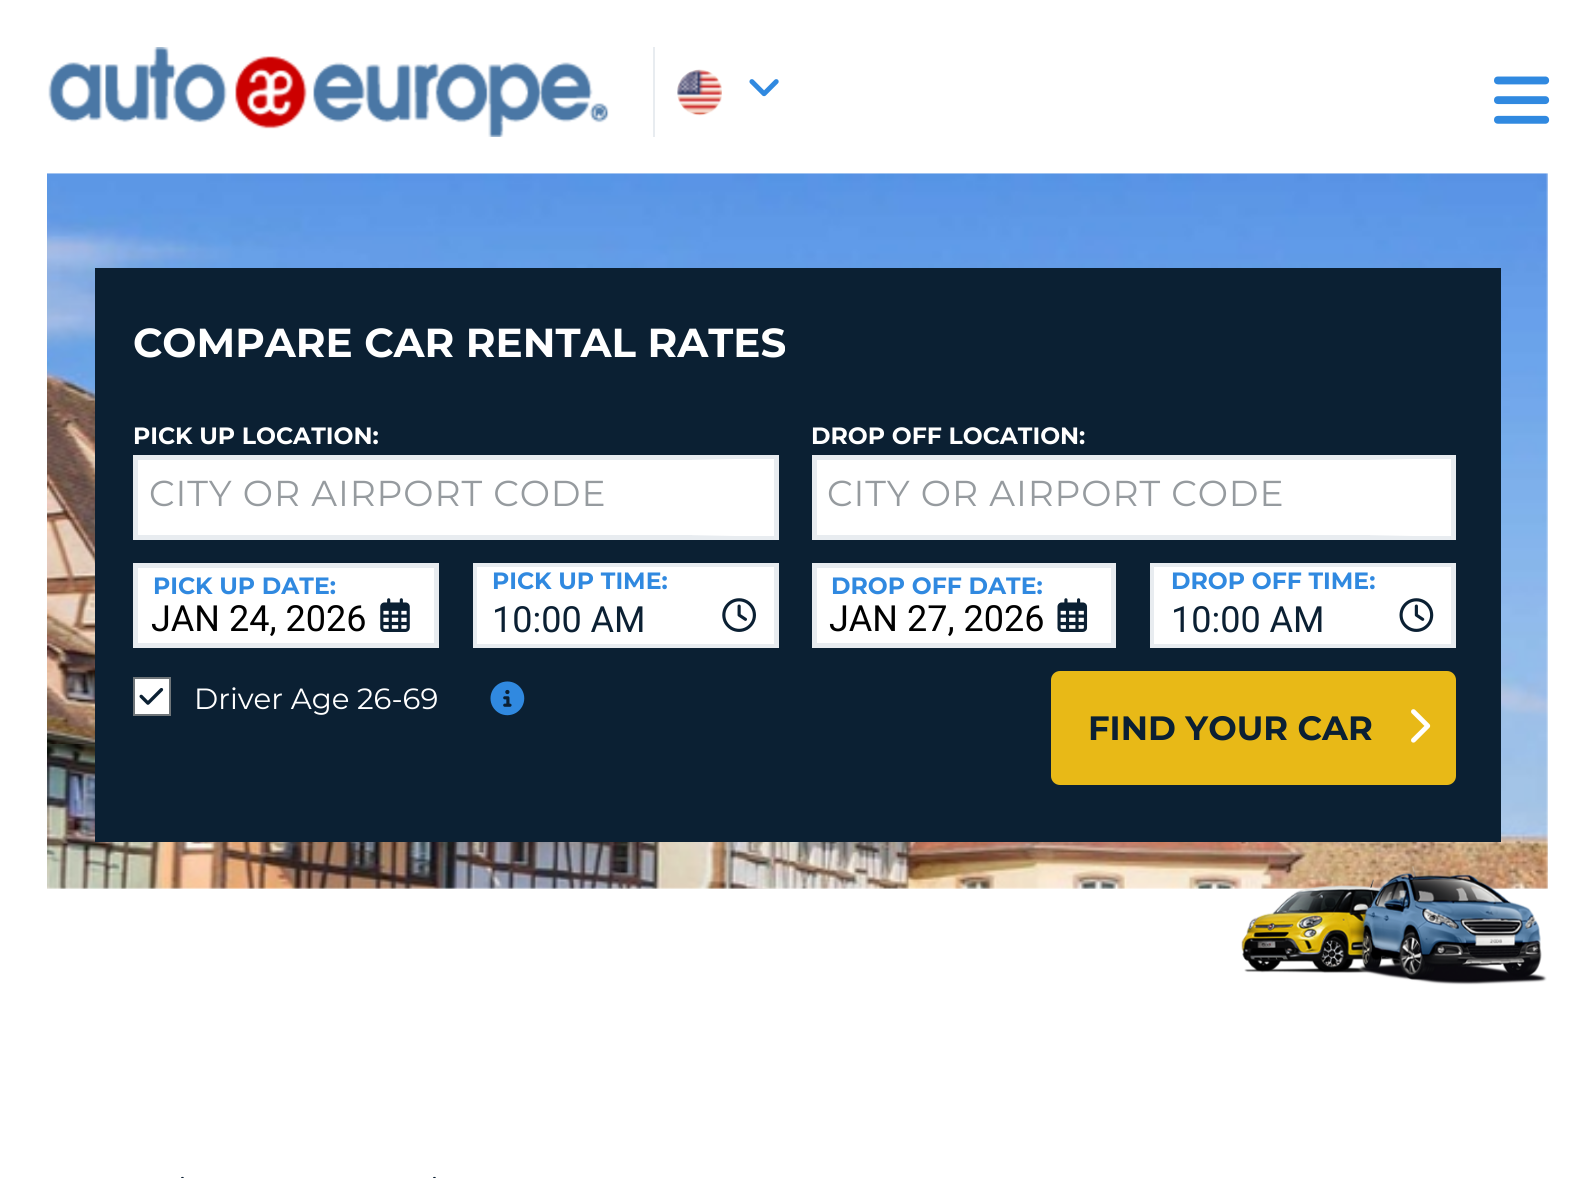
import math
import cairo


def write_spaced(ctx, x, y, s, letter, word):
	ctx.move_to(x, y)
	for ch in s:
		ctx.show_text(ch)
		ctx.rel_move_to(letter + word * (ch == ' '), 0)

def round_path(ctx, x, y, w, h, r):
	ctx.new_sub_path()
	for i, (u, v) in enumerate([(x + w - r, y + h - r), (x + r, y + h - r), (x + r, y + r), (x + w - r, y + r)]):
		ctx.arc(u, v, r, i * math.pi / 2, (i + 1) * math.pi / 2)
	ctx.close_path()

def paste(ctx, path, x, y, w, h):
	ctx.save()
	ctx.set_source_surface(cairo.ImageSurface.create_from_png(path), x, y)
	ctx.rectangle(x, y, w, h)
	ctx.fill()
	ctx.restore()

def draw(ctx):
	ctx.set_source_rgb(1, 1, 1)
	ctx.paint()
	ctx.set_source_rgb(0.91, 0.925, 0.941)
	ctx.rectangle(653, 47, 2, 90)
	ctx.fill()
	paste(ctx, 'media/1.png', 48, 47, 561, 90)
	paste(ctx, 'media/2.png', 677, 69, 45, 47)
	paste(ctx, 'media/3.png', 749, 79, 30, 18)
	paste(ctx, 'media/4.png', 1494, 76, 56, 48)
	paste(ctx, 'media/5.png', 47, 173, 1501, 716)
	ctx.set_source_rgb(0.043, 0.125, 0.2)
	ctx.rectangle(95, 268, 1406, 574)
	ctx.fill()
	ctx.select_font_face('Montserrat', cairo.FONT_SLANT_NORMAL, cairo.FONT_WEIGHT_BOLD)
	ctx.set_font_size(40.5)
	ctx.set_source_rgb(1, 1, 1)
	ctx.move_to(133, 357)
	ctx.show_text('COMPARE CAR RENTAL RATES')
	ctx.set_font_size(23.6)
	ctx.move_to(133, 444)
	ctx.show_text('PICK UP LOCATION:')
	ctx.rectangle(138, 460, 597, 75)
	ctx.fill()
	ctx.rectangle(135.5, 457.5, 641, 80)
	ctx.set_source_rgb(0.91, 0.925, 0.941)
	ctx.set_line_width(5)
	ctx.stroke()
	ctx.select_font_face('Montserrat')
	ctx.set_font_size(36)
	ctx.set_source_rgb(0.588, 0.608, 0.624)
	write_spaced(ctx, 149, 506, 'CITY OR AIRPORT CODE', 0.9, 0)
	gradient = cairo.LinearGradient(686, 497, 776, 497)
	gradient.add_color_stop_rgba(0, 1, 1, 1, 0)
	gradient.add_color_stop_rgba(0.55, 1, 1, 1, 1)
	ctx.set_source(gradient)
	ctx.rectangle(692, 459, 82, 77)
	ctx.fill()
	ctx.select_font_face('Montserrat', cairo.FONT_SLANT_NORMAL, cairo.FONT_WEIGHT_BOLD)
	ctx.set_font_size(23.6)
	ctx.set_source_rgb(1, 1, 1)
	ctx.move_to(811, 444)
	ctx.show_text('DROP OFF LOCATION:')
	ctx.rectangle(817, 460, 596, 75)
	ctx.fill()
	ctx.rectangle(814.5, 457.5, 639, 80)
	ctx.set_source_rgb(0.91, 0.925, 0.941)
	ctx.stroke()
	ctx.select_font_face('Montserrat')
	ctx.set_font_size(36)
	ctx.set_source_rgb(0.588, 0.608, 0.624)
	write_spaced(ctx, 827, 506, 'CITY OR AIRPORT CODE', 0.9, 0)
	gradient = cairo.LinearGradient(1364, 497, 1454, 497)
	gradient.add_color_stop_rgba(0, 1, 1, 1, 0)
	gradient.add_color_stop_rgba(0.55, 1, 1, 1, 1)
	ctx.set_source(gradient)
	ctx.rectangle(1370, 459, 81, 77)
	ctx.fill()
	ctx.set_source_rgb(1, 1, 1)
	ctx.rectangle(135.5, 565.5, 301, 80)
	ctx.fill_preserve()
	ctx.set_source_rgb(0.91, 0.925, 0.941)
	ctx.stroke()
	ctx.select_font_face('Montserrat', cairo.FONT_SLANT_NORMAL, cairo.FONT_WEIGHT_BOLD)
	ctx.set_font_size(23.6)
	ctx.set_source_rgb(0.188, 0.537, 0.878)
	ctx.move_to(153, 594)
	ctx.show_text('PICK UP DATE:')
	ctx.select_font_face('Roboto')
	ctx.set_font_size(36)
	ctx.set_source_rgb(0, 0, 0)
	ctx.move_to(151, 631)
	ctx.show_text('JAN 24, 2026')
	paste(ctx, 'media/6.png', 380, 598, 30, 34)
	ctx.rectangle(475.5, 565.5, 301, 80)
	ctx.set_source_rgb(0.91, 0.925, 0.941)
	ctx.stroke()
	ctx.set_source_rgb(1, 1, 1)
	ctx.rectangle(477, 567, 297, 77)
	ctx.fill()
	ctx.select_font_face('Montserrat', cairo.FONT_SLANT_NORMAL, cairo.FONT_WEIGHT_BOLD)
	ctx.set_font_size(23.6)
	ctx.set_source_rgb(0.188, 0.537, 0.878)
	ctx.move_to(492, 589)
	ctx.show_text('PICK UP TIME:')
	ctx.select_font_face('Roboto')
	ctx.set_font_size(36)
	ctx.set_source_rgb(0.043, 0.125, 0.2)
	ctx.move_to(492, 632)
	ctx.show_text('10:00 AM')
	paste(ctx, 'media/7.png', 722, 598, 34, 34)
	ctx.set_source_rgb(1, 1, 1)
	ctx.rectangle(814.5, 565.5, 299, 80)
	ctx.fill_preserve()
	ctx.set_source_rgb(0.91, 0.925, 0.941)
	ctx.stroke()
	ctx.select_font_face('Montserrat', cairo.FONT_SLANT_NORMAL, cairo.FONT_WEIGHT_BOLD)
	ctx.set_font_size(23.6)
	ctx.set_source_rgb(0.188, 0.537, 0.878)
	ctx.move_to(831, 594)
	ctx.show_text('DROP OFF DATE:')
	ctx.select_font_face('Roboto')
	ctx.set_font_size(36)
	ctx.set_source_rgb(0, 0, 0)
	ctx.move_to(829, 631)
	ctx.show_text('JAN 27, 2026')
	paste(ctx, 'media/8.png', 1057, 598, 31, 34)
	ctx.rectangle(1152.5, 565.5, 301, 80)
	ctx.set_source_rgb(0.91, 0.925, 0.941)
	ctx.stroke()
	ctx.set_source_rgb(1, 1, 1)
	ctx.rectangle(1154, 567, 297, 77)
	ctx.fill()
	ctx.select_font_face('Montserrat', cairo.FONT_SLANT_NORMAL, cairo.FONT_WEIGHT_BOLD)
	ctx.set_font_size(23.6)
	ctx.set_source_rgb(0.188, 0.537, 0.878)
	ctx.move_to(1171, 589)
	ctx.show_text('DROP OFF TIME:')
	ctx.select_font_face('Roboto')
	ctx.set_font_size(36)
	ctx.set_source_rgb(0.043, 0.125, 0.2)
	ctx.move_to(1171, 632)
	ctx.show_text('10:00 AM')
	paste(ctx, 'media/9.png', 1399, 598, 35, 34)
	ctx.set_source_rgb(1, 1, 1)
	ctx.rectangle(134, 678, 36, 37)
	ctx.fill_preserve()
	ctx.set_source_rgb(0.435, 0.459, 0.475)
	ctx.set_line_width(2)
	ctx.stroke()
	ctx.select_font_face('Montserrat')
	ctx.set_font_size(29.25)
	ctx.set_source_rgb(1, 1, 1)
	ctx.move_to(194, 709)
	ctx.show_text('Driver Age 26-69')
	paste(ctx, 'media/10.png', 139, 688, 25, 17)
	paste(ctx, 'media/11.png', 490, 681, 35, 35)
	ctx.set_source_rgb(0.91, 0.725, 0.09)
	round_path(ctx, 1052, 672, 403, 112, 8)
	ctx.fill_preserve()
	ctx.stroke()
	ctx.select_font_face('Montserrat', cairo.FONT_SLANT_NORMAL, cairo.FONT_WEIGHT_BOLD)
	ctx.set_font_size(33.75)
	ctx.set_source_rgb(0.043, 0.125, 0.2)
	ctx.move_to(1088, 740)
	ctx.show_text('FIND YOUR CAR')
	paste(ctx, 'media/12.png', 1411, 709, 20, 34)
	paste(ctx, 'media/13.png', 1241, 866, 306, 119)
	paste(ctx, 'media/14.png', 181, 1176, 3, 2)
	paste(ctx, 'media/14.png', 433, 1176, 3, 2)


surface = cairo.ImageSurface(cairo.FORMAT_RGB24, 1595, 1178)
ctx = cairo.Context(surface)
options = cairo.FontOptions()
options.set_hint_metrics(cairo.HINT_METRICS_OFF)
options.set_hint_style(cairo.HINT_STYLE_NONE)
ctx.set_font_options(options)
ctx.set_miter_limit(4)
draw(ctx)
surface.write_to_png('image.png')
